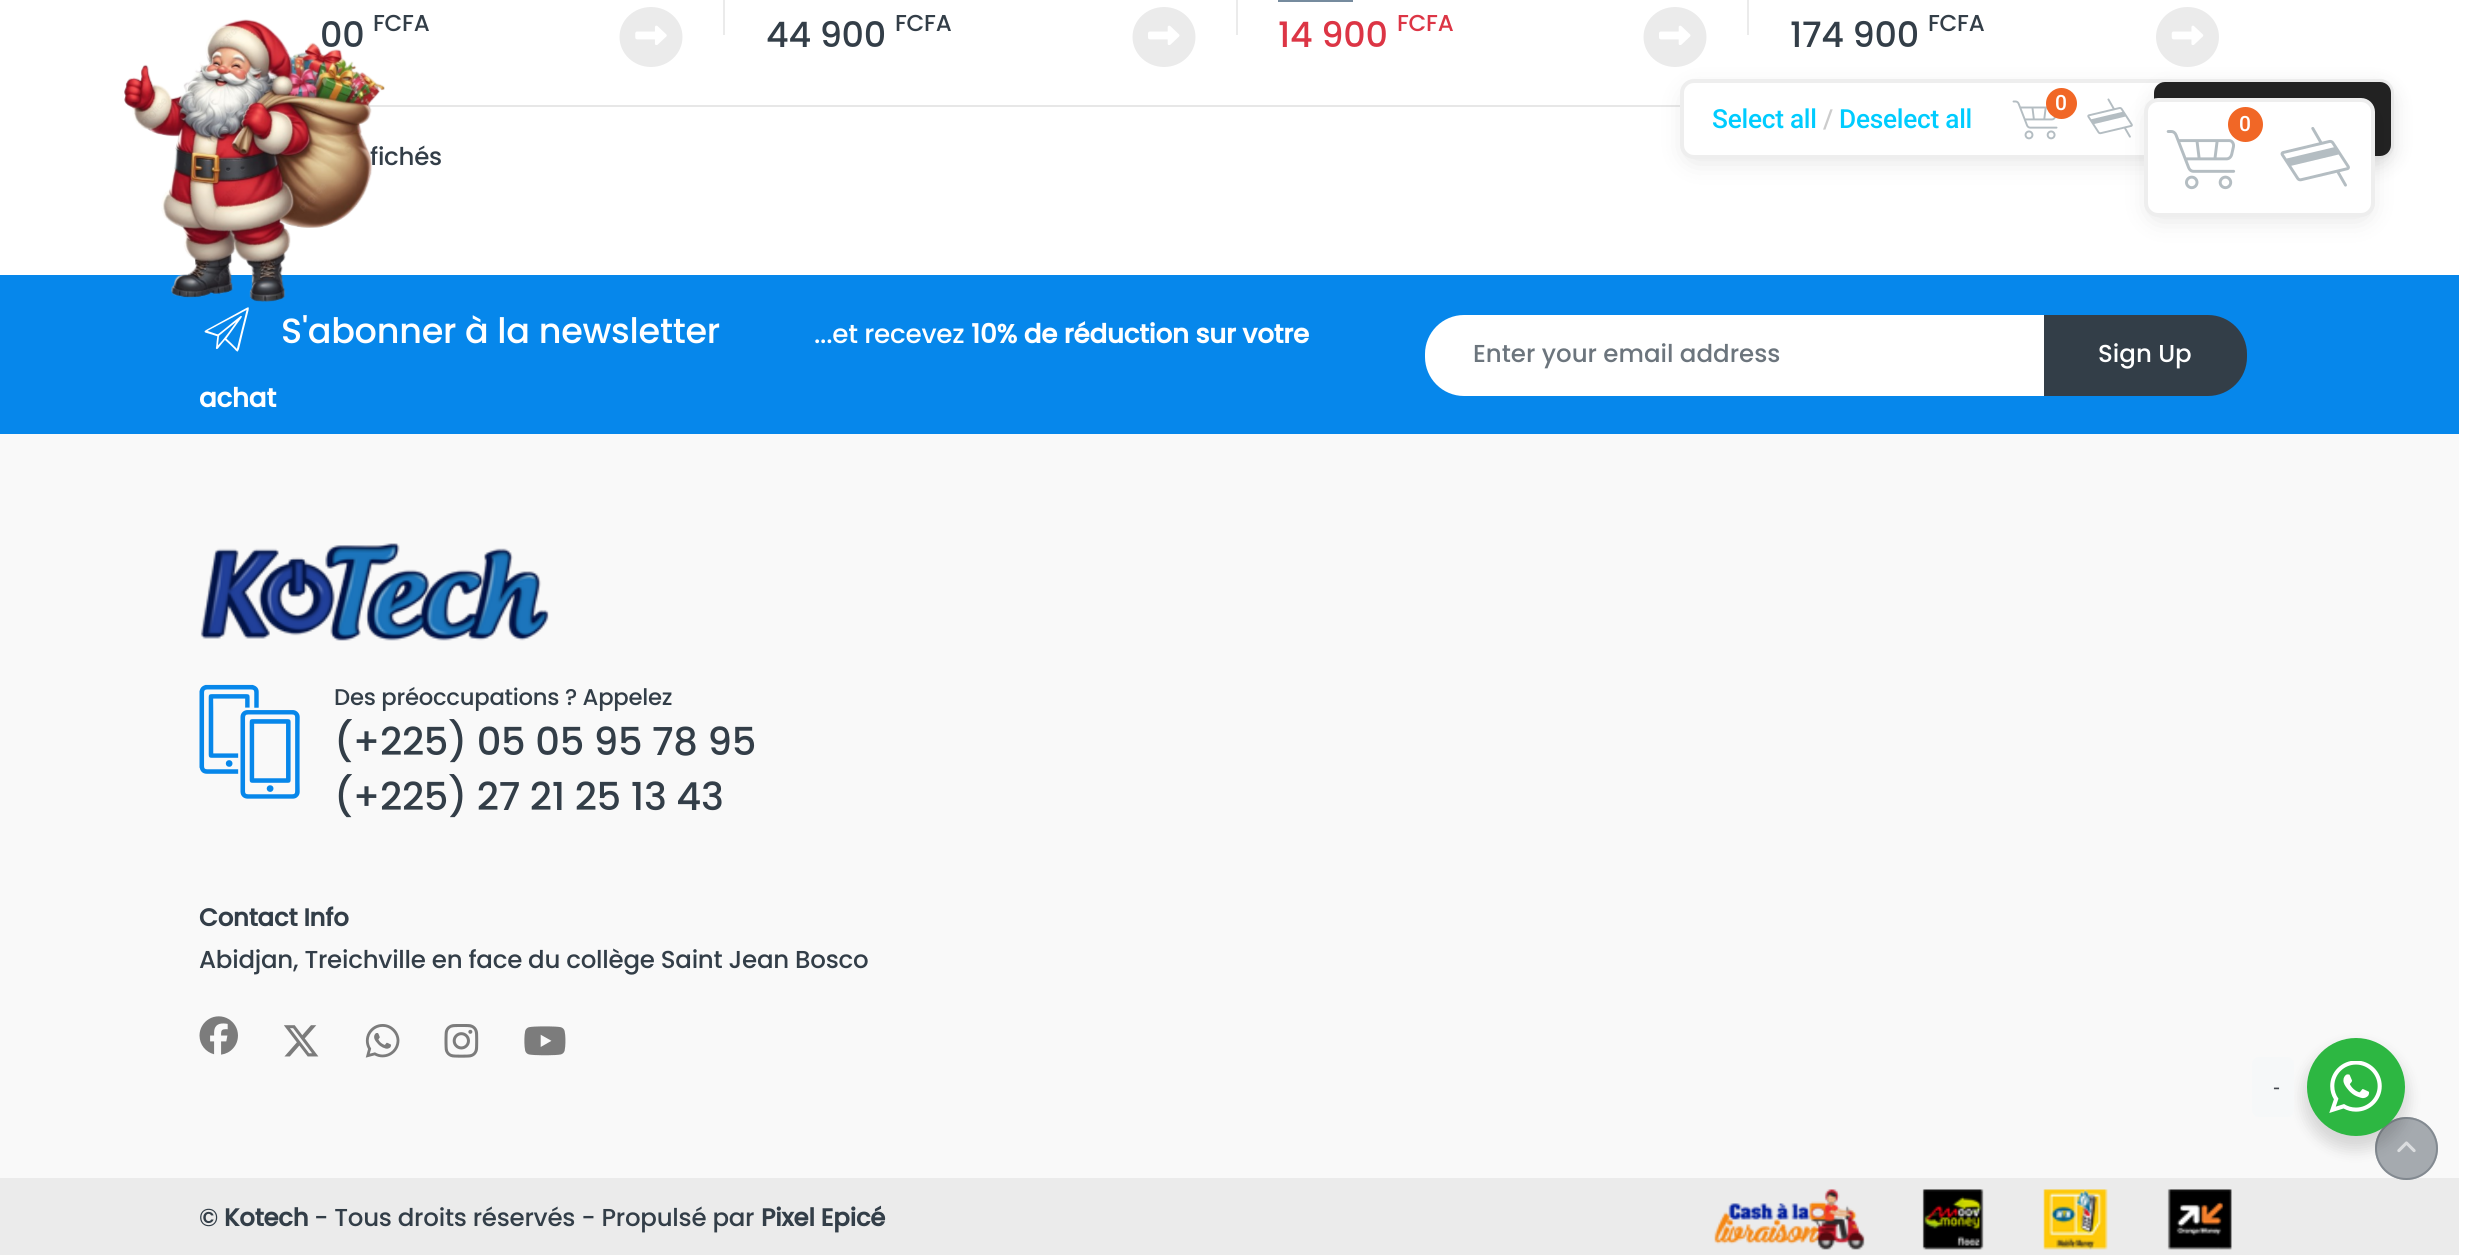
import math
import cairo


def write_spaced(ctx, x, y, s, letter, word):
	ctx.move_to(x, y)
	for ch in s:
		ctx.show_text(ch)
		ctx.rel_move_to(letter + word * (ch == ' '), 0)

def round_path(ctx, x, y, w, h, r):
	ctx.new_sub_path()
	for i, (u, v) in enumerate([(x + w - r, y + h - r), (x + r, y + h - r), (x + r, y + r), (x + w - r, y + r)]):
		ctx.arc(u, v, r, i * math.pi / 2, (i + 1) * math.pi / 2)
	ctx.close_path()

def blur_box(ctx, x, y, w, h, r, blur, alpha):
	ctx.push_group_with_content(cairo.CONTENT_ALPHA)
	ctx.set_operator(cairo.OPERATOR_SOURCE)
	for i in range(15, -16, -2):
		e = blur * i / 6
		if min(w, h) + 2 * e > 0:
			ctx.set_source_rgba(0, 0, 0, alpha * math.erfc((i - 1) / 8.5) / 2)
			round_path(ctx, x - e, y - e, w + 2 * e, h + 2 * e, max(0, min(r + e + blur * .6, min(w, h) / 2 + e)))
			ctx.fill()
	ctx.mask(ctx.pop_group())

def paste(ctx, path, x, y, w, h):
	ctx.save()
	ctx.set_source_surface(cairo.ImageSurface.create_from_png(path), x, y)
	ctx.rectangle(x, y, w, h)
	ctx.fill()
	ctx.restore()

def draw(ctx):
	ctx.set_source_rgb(1, 1, 1)
	ctx.paint()
	ctx.select_font_face('Poppins Medium')
	ctx.set_font_size(35)
	ctx.set_source_rgb(0.2, 0.243, 0.282)
	write_spaced(ctx, 320, 47, '00', -0.25, 0)
	ctx.set_font_size(23)
	write_spaced(ctx, 373, 31, 'FCFA', -0.25, 0)
	ctx.set_source_rgb(0.918, 0.918, 0.918)
	ctx.new_path()
	ctx.move_to(651, 7)
	ctx.curve_to(668.5, 7, 682.5, 20.5, 682.5, 37)
	ctx.curve_to(682.5, 53.5, 668.5, 67, 651, 67)
	ctx.curve_to(633.5, 67, 619.5, 53.5, 619.5, 37)
	ctx.curve_to(619.5, 20.5, 633.5, 7, 651, 7)
	ctx.close_path()
	ctx.fill()
	paste(ctx, 'media/1.png', 635, 25, 32, 20)
	ctx.rectangle(723, 0, 2, 35)
	ctx.fill()
	ctx.set_font_size(35)
	ctx.set_source_rgb(0.2, 0.243, 0.282)
	write_spaced(ctx, 766, 47, '44 900', -0.25, 0)
	ctx.set_font_size(23)
	write_spaced(ctx, 895, 31, 'FCFA', -0.25, 0)
	ctx.set_source_rgb(0.918, 0.918, 0.918)
	ctx.new_path()
	ctx.move_to(1164, 7)
	ctx.curve_to(1181.5, 7, 1195.5, 20.5, 1195.5, 37)
	ctx.curve_to(1195.5, 53.5, 1181.5, 67, 1164, 67)
	ctx.curve_to(1146.5, 67, 1132.5, 53.5, 1132.5, 37)
	ctx.curve_to(1132.5, 20.5, 1146.5, 7, 1164, 7)
	ctx.close_path()
	ctx.fill()
	paste(ctx, 'media/2.png', 1148, 25, 32, 20)
	ctx.rectangle(1236, 0, 2, 35)
	ctx.fill()
	ctx.set_source_rgb(0.463, 0.545, 0.62)
	ctx.rectangle(1278, 0, 75, 2)
	ctx.fill()
	ctx.set_font_size(35)
	ctx.set_source_rgb(0.863, 0.208, 0.271)
	write_spaced(ctx, 1278, 47, '14 900', -0.25, 0)
	ctx.set_font_size(23)
	write_spaced(ctx, 1397, 31, 'FCFA', -0.25, 0)
	ctx.set_source_rgb(0.918, 0.918, 0.918)
	ctx.new_path()
	ctx.move_to(1675, 7)
	ctx.curve_to(1692.5, 7, 1706.5, 20.5, 1706.5, 37)
	ctx.curve_to(1706.5, 53.5, 1692.5, 67, 1675, 67)
	ctx.curve_to(1657.5, 67, 1643.5, 53.5, 1643.5, 37)
	ctx.curve_to(1643.5, 20.5, 1657.5, 7, 1675, 7)
	ctx.close_path()
	ctx.fill()
	paste(ctx, 'media/2.png', 1659, 25, 32, 20)
	ctx.rectangle(1747, 0, 2, 35)
	ctx.fill()
	ctx.set_font_size(35)
	ctx.set_source_rgb(0.2, 0.243, 0.282)
	write_spaced(ctx, 1790, 47, '174 900', -0.25, 0)
	ctx.set_font_size(23)
	write_spaced(ctx, 1928, 31, 'FCFA', -0.25, 0)
	ctx.set_source_rgb(0.918, 0.918, 0.918)
	ctx.new_path()
	ctx.move_to(2187.5, 7)
	ctx.curve_to(2205, 7, 2219, 20.5, 2219, 37)
	ctx.curve_to(2219, 53.5, 2205, 67, 2187.5, 67)
	ctx.curve_to(2170, 67, 2156, 53.5, 2156, 37)
	ctx.curve_to(2156, 20.5, 2170, 7, 2187.5, 7)
	ctx.close_path()
	ctx.fill()
	paste(ctx, 'media/3.png', 2171, 25, 33, 20)
	ctx.set_source_rgb(0.906, 0.906, 0.906)
	ctx.rectangle(367, 105, 1313, 2)
	ctx.fill()
	ctx.set_font_size(24.5)
	ctx.set_source_rgb(0.2, 0.243, 0.282)
	write_spaced(ctx, 370, 165, 'fichés', -0.25, 0)
	ctx.set_source_rgb(0.027, 0.529, 0.918)
	ctx.rectangle(0, 275, 2459, 159)
	ctx.fill()
	paste(ctx, 'media/4.png', 204, 307, 45, 45)
	ctx.set_font_size(35)
	ctx.set_source_rgb(1, 1, 1)
	write_spaced(ctx, 281, 343, 'S\'abonner à la newsletter', -0.25, 0)
	ctx.set_font_size(26.25)
	write_spaced(ctx, 814, 343, '...et recevez', -0.25, 0)
	ctx.select_font_face('Poppins', cairo.FONT_SLANT_NORMAL, cairo.FONT_WEIGHT_BOLD)
	write_spaced(ctx, 971, 343, '10% de réduction sur votre', -0.25, 0)
	write_spaced(ctx, 199, 407, 'achat', -0.25, 0)
	ctx.new_path()
	ctx.move_to(1464, 315)
	ctx.line_to(2046, 315)
	ctx.line_to(2046, 396)
	ctx.line_to(1464, 396)
	ctx.curve_to(1442.5, 396, 1425, 378.5, 1425, 357)
	ctx.line_to(1425, 354)
	ctx.curve_to(1425, 332.5, 1442.5, 315, 1464, 315)
	ctx.close_path()
	ctx.fill()
	ctx.select_font_face('Poppins Medium')
	ctx.set_font_size(24.5)
	ctx.set_source_rgb(0.424, 0.459, 0.49)
	ctx.move_to(1473, 362)
	ctx.show_text('Enter your email address')
	ctx.set_source_rgb(0.2, 0.243, 0.282)
	ctx.new_path()
	ctx.move_to(2045, 316)
	ctx.line_to(2208, 316)
	ctx.curve_to(2229, 316, 2246, 333, 2246, 354)
	ctx.line_to(2246, 357)
	ctx.curve_to(2246, 378, 2229, 395, 2208, 395)
	ctx.line_to(2045, 395)
	ctx.close_path()
	ctx.fill_preserve()
	ctx.stroke()
	ctx.set_source_rgb(1, 1, 1)
	ctx.move_to(2098, 362)
	ctx.show_text('Sign Up')
	ctx.set_source_rgb(0.973, 0.973, 0.973)
	ctx.rectangle(0, 434, 2459, 744)
	ctx.fill()
	paste(ctx, 'media/5.png', 200, 543, 349, 98)
	paste(ctx, 'media/6.png', 199, 684, 101, 115)
	ctx.set_font_size(22.75)
	ctx.set_source_rgb(0.2, 0.243, 0.282)
	write_spaced(ctx, 334, 705, 'Des préoccupations ? Appelez', -0.25, 0)
	ctx.set_font_size(38.5)
	write_spaced(ctx, 334, 755, '(+225) 05 05 95 78 95', -0.25, 0)
	write_spaced(ctx, 334, 810, '(+225) 27 21 25 13 43', -0.25, 0)
	ctx.select_font_face('Poppins', cairo.FONT_SLANT_NORMAL, cairo.FONT_WEIGHT_BOLD)
	ctx.set_font_size(24.5)
	write_spaced(ctx, 199, 926, 'Contact Info', -0.25, 0)
	ctx.select_font_face('Poppins Medium')
	write_spaced(ctx, 199, 968, 'Abidjan, Treichville en face du collège Saint Jean Bosco', -0.25, 0)
	paste(ctx, 'media/7.png', 199, 1016, 39, 39)
	paste(ctx, 'media/8.png', 284, 1025, 35, 32)
	paste(ctx, 'media/9.png', 365, 1024, 35, 34)
	paste(ctx, 'media/10.png', 444, 1024, 35, 34)
	paste(ctx, 'media/11.png', 524, 1026, 42, 30)
	ctx.set_source_rgb(0.918, 0.918, 0.918)
	ctx.rectangle(0, 1178, 2459, 77)
	ctx.fill()
	ctx.set_source_rgb(0.2, 0.243, 0.282)
	write_spaced(ctx, 199, 1226, '©', -0.25, 0)
	ctx.select_font_face('Poppins', cairo.FONT_SLANT_NORMAL, cairo.FONT_WEIGHT_BOLD)
	write_spaced(ctx, 224, 1226, 'Kotech', -0.25, 0)
	ctx.select_font_face('Poppins Medium')
	write_spaced(ctx, 314, 1226, '- Tous droits réservés - Propulsé par', -0.25, 0)
	ctx.select_font_face('Poppins', cairo.FONT_SLANT_NORMAL, cairo.FONT_WEIGHT_BOLD)
	write_spaced(ctx, 761, 1226, 'Pixel Epicé', -0.25, 0)
	paste(ctx, 'media/12.png', 1714, 1189, 518, 61)
	paste(ctx, 'media/13.png', 124, 19, 261, 283)
	ctx.set_source_rgb(0, 0, 0)
	blur_box(ctx, 1687, 93, 700, 66, 7, 14, 0.12)
	ctx.set_source_rgb(1, 1, 1)
	round_path(ctx, 1682, 81, 710, 76, 12)
	ctx.fill_preserve()
	ctx.set_source_rgb(0.933, 0.933, 0.933)
	ctx.set_line_width(4)
	ctx.stroke()
	ctx.select_font_face('Roboto Medium')
	ctx.set_font_size(26.25)
	ctx.set_source_rgb(0, 0.8, 1)
	write_spaced(ctx, 1712, 128, 'Select all', -0.25, 0)
	ctx.set_source_rgb(0.8, 0.8, 0.8)
	write_spaced(ctx, 1823, 128, '/', -0.25, 0)
	ctx.set_source_rgb(0, 0.8, 1)
	write_spaced(ctx, 1839, 128, 'Deselect all', -0.25, 0)
	paste(ctx, 'media/14.png', 2012, 100, 46, 40)
	ctx.set_source_rgb(0.945, 0.404, 0.149)
	ctx.arc(2061.5, 103.5, 15.5, 0, 2 * math.pi)
	ctx.fill()
	ctx.set_font_size(21)
	ctx.set_source_rgb(1, 1, 1)
	write_spaced(ctx, 2055, 110, '0', -0.25, 0)
	paste(ctx, 'media/15.png', 2087, 98, 46, 40)
	ctx.set_source_rgb(0, 0, 0)
	blur_box(ctx, 2161, 96, 223, 60, 4, 14, 0.12)
	ctx.set_source_rgb(0.133, 0.133, 0.133)
	round_path(ctx, 2154, 82, 237, 74, 11)
	ctx.fill()
	ctx.set_source_rgb(0, 0, 0)
	blur_box(ctx, 2151, 112, 217, 105, 7, 14, 0.12)
	ctx.set_source_rgb(1, 1, 1)
	round_path(ctx, 2146, 100, 227, 115, 12)
	ctx.fill_preserve()
	ctx.set_source_rgb(0.933, 0.933, 0.933)
	ctx.stroke()
	paste(ctx, 'media/16.png', 2166, 130, 70, 60)
	ctx.set_source_rgb(0.945, 0.404, 0.149)
	ctx.arc(2245.5, 124.5, 17.5, 0, 2 * math.pi)
	ctx.fill()
	ctx.set_source_rgb(1, 1, 1)
	write_spaced(ctx, 2239, 131, '0', -0.25, 0)
	paste(ctx, 'media/17.png', 2280, 127, 70, 60)
	ctx.set_source_rgba(0.424, 0.459, 0.49, 0.6)
	ctx.arc(2406.5, 1148.5, 31.5, 0, 2 * math.pi)
	ctx.fill()
	ctx.arc(2406.5, 1148.5, 30.5, 0, 2 * math.pi)
	ctx.set_line_width(2)
	ctx.stroke()
	paste(ctx, 'media/19.png', 2397, 1141, 19, 12)
	ctx.set_source_rgb(0, 0, 0)
	blur_box(ctx, 2303, 1045, 105, 105, 52.5, 7, 0.14)
	ctx.set_source_rgb(0.961, 0.969, 0.976)
	round_path(ctx, 2252, 1057, 42, 60, 7)
	ctx.fill()
	ctx.select_font_face('Liberation Sans')
	ctx.set_source_rgb(0.263, 0.278, 0.306)
	write_spaced(ctx, 2273, 1094, '-', -1, 0)
	ctx.set_source_rgb(0.176, 0.718, 0.259)
	ctx.new_path()
	ctx.arc(2356, 1087, 49, 0, 2 * math.pi)
	ctx.fill()
	paste(ctx, 'media/18.png', 2329, 1061, 53, 52)


surface = cairo.ImageSurface(cairo.FORMAT_RGB24, 2472, 1255)
ctx = cairo.Context(surface)
options = cairo.FontOptions()
options.set_hint_metrics(cairo.HINT_METRICS_OFF)
options.set_hint_style(cairo.HINT_STYLE_NONE)
ctx.set_font_options(options)
ctx.set_miter_limit(4)
draw(ctx)
surface.write_to_png('image.png')
